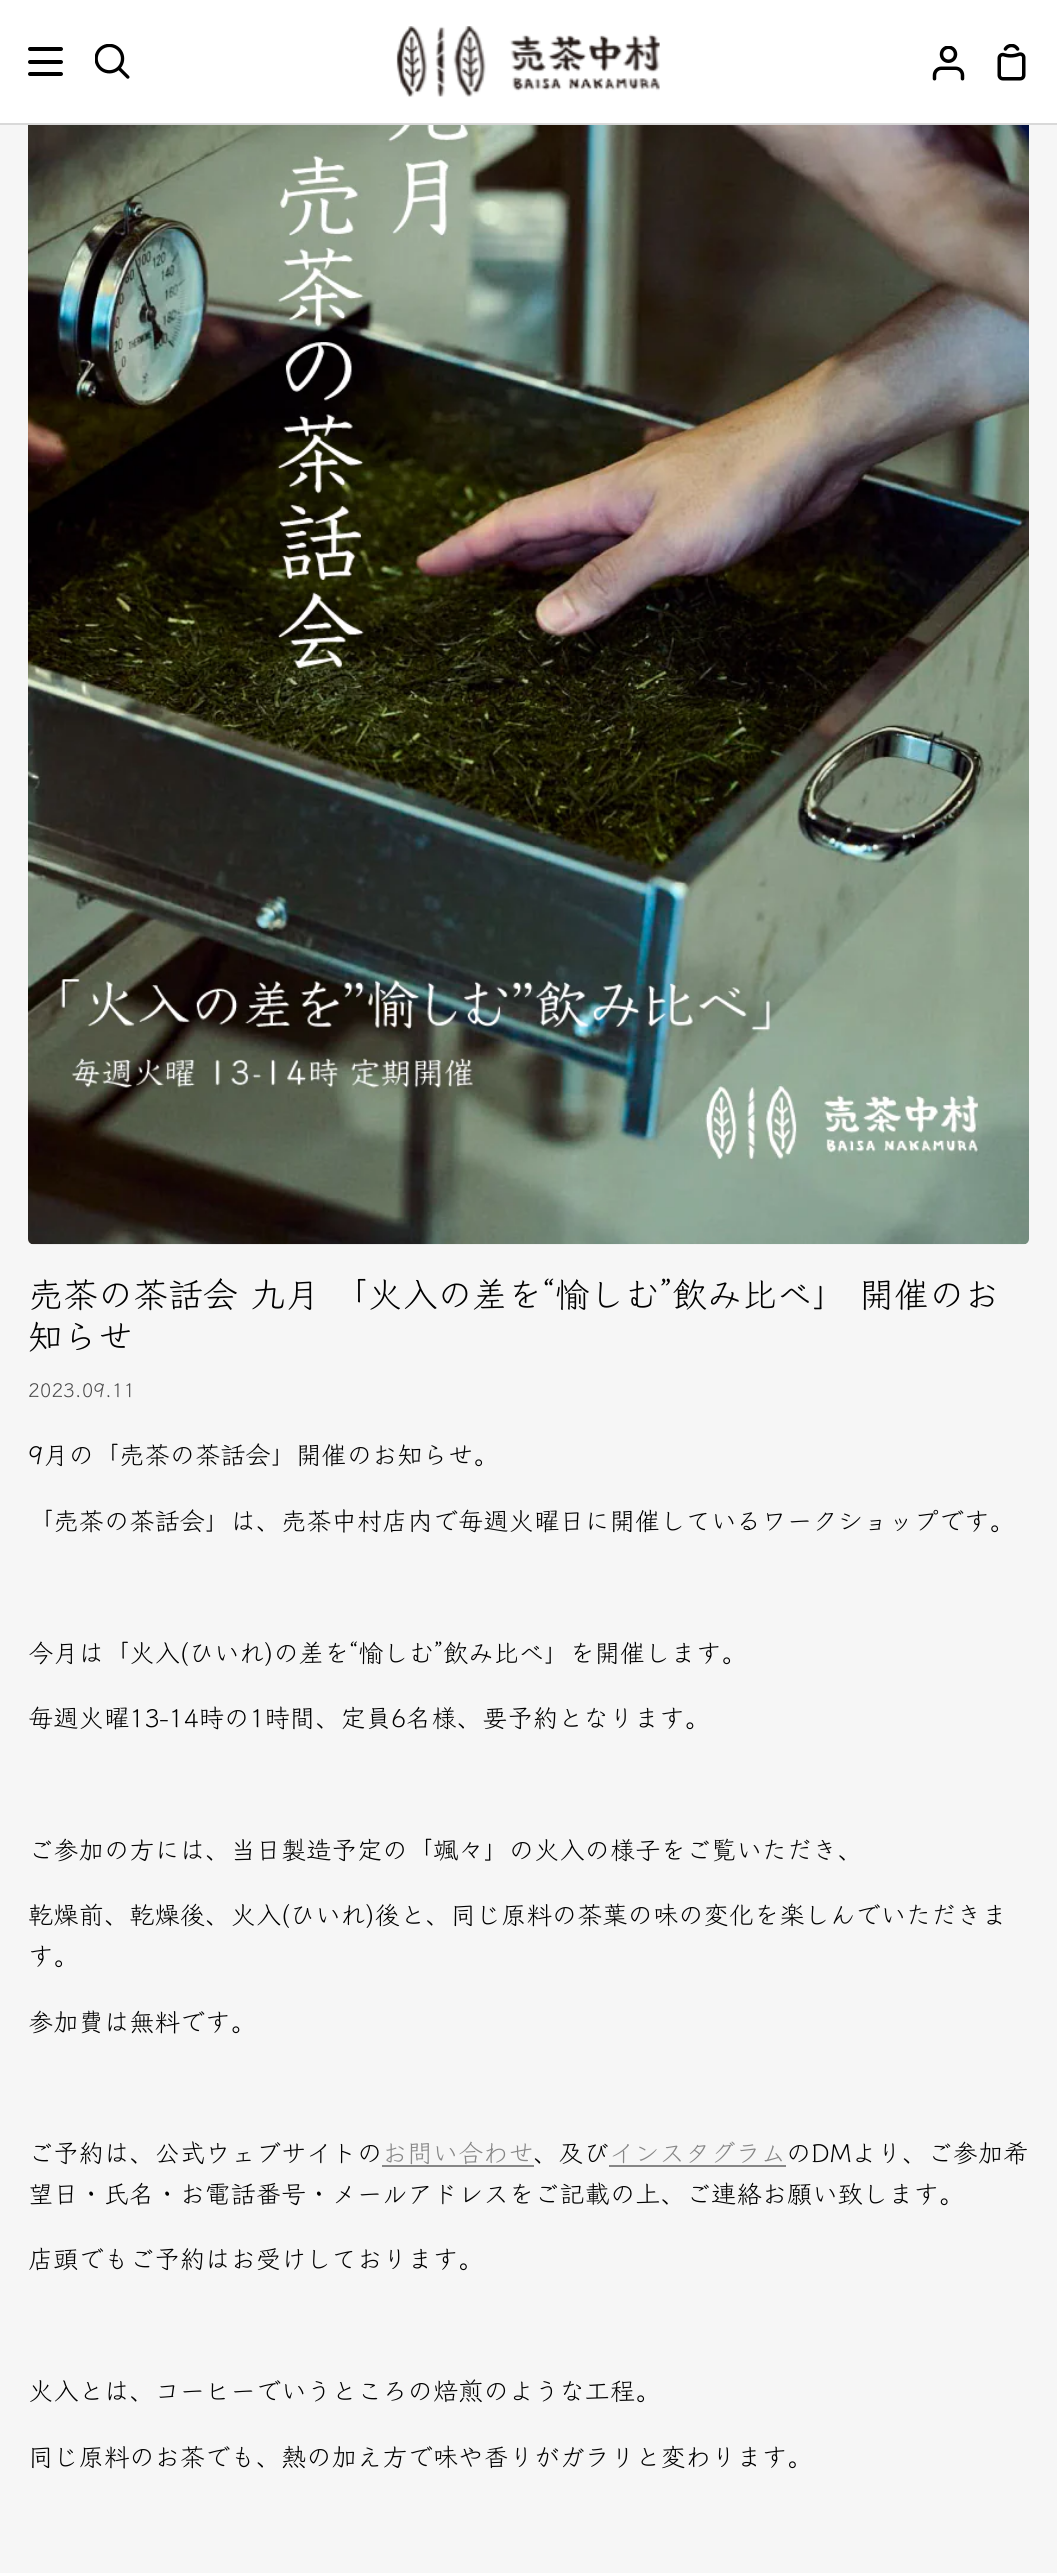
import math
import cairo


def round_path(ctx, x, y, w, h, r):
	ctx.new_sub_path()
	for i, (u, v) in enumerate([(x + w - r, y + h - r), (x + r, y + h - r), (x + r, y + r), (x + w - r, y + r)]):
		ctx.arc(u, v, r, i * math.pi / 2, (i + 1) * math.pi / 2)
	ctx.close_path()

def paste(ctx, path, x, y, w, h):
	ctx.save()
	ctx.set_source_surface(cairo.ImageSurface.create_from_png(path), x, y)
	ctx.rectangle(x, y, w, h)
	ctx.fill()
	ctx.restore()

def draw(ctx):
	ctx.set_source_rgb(0.961, 0.961, 0.961)
	ctx.paint()
	ctx.set_source_rgb(0.851, 0.851, 0.851)
	ctx.rectangle(0, 123, 1057, 2)
	ctx.fill()
	ctx.set_source_rgb(1, 1, 1)
	ctx.rectangle(0, 0, 1057, 123)
	ctx.fill()
	ctx.set_source_rgb(0, 0, 0)
	round_path(ctx, 28, 47, 35, 4, 2)
	ctx.fill()
	round_path(ctx, 28, 60, 35, 4, 2)
	ctx.fill()
	round_path(ctx, 28, 72, 35, 4, 2)
	ctx.fill()
	paste(ctx, 'media/1.png', 95, 44, 35, 35)
	paste(ctx, 'media/2.png', 396, 26, 264, 71)
	paste(ctx, 'media/3.png', 932, 46, 33, 35)
	paste(ctx, 'media/4.png', 997, 44, 29, 37)
	paste(ctx, 'media/5.png', 28, 125, 1001, 1120)
	ctx.select_font_face('Klee One')
	ctx.set_font_size(35)
	ctx.move_to(28, 1307)
	ctx.show_text('売茶の茶話会 九月 「火入の差を“愉しむ”飲み比べ」 開催のお')
	ctx.move_to(28, 1349)
	ctx.show_text('知らせ')
	ctx.set_font_size(19.5)
	ctx.set_source_rgb(0.29, 0.29, 0.29)
	ctx.move_to(28, 1397)
	ctx.show_text('2023.09.11')
	ctx.set_font_size(25.3)
	ctx.set_source_rgb(0, 0, 0)
	for x, y, s in [
		(28, 1464, '9月の「売茶の茶話会」開催のお知らせ。'),
		(28, 1530, '「売茶の茶話会」は、売茶中村店内で'),
		(458, 1530, '毎週火曜日に開催しているワークショップです。'),
		(28, 1662, '今月は「火入(ひいれ)の差を“愉しむ”飲み比べ」を開催します。'),
		(28, 1727, '毎週火曜13-14時の1時間、定員6名様、要予約となります。'),
		(28, 1859, 'ご参加の方には、当日製造予定の「颯々」の火入の様子をご覧いただき、'),
		(28, 1924, '乾燥前、乾燥後、火入(ひいれ)後と、同じ原料の茶葉の味の変化を楽しんでいただきま'),
		(28, 1965, 'す。'),
		(28, 2031, '参加費は無料です。'),
		(28, 2162, 'ご予約は、公式ウェブサイトの'),
	]:
		ctx.move_to(x, y)
		ctx.show_text(s)
	ctx.set_source_rgb(0.525, 0.525, 0.525)
	ctx.move_to(382, 2162)
	ctx.show_text('お問い合わせ')
	ctx.rectangle(382, 2165, 152, 2)
	ctx.fill()
	ctx.set_source_rgb(0, 0, 0)
	ctx.move_to(533, 2162)
	ctx.show_text('、及び')
	ctx.set_source_rgb(0.525, 0.525, 0.525)
	ctx.move_to(609, 2162)
	ctx.show_text('インスタグラム')
	ctx.rectangle(609, 2165, 177, 2)
	ctx.fill()
	ctx.set_source_rgb(0, 0, 0)
	for x, y, s in [
		(786, 2162, 'のDMより、ご参加希'),
		(28, 2203, '望日・氏名・お電話番号・メールアドレスをご記載の上、ご連絡お願い致します。'),
		(28, 2268, '店頭でもご予約はお受けしております。'),
		(28, 2400, '火入とは、コーヒーでいうところの焙煎のような工程。'),
		(28, 2466, '同じ原料のお茶でも、熱の加え方で味や香りがガラリと変わります。'),
	]:
		ctx.move_to(x, y)
		ctx.show_text(s)


surface = cairo.ImageSurface(cairo.FORMAT_RGB24, 1057, 2573)
ctx = cairo.Context(surface)
options = cairo.FontOptions()
options.set_hint_metrics(cairo.HINT_METRICS_OFF)
options.set_hint_style(cairo.HINT_STYLE_NONE)
ctx.set_font_options(options)
ctx.set_miter_limit(4)
draw(ctx)
surface.write_to_png('image.png')
